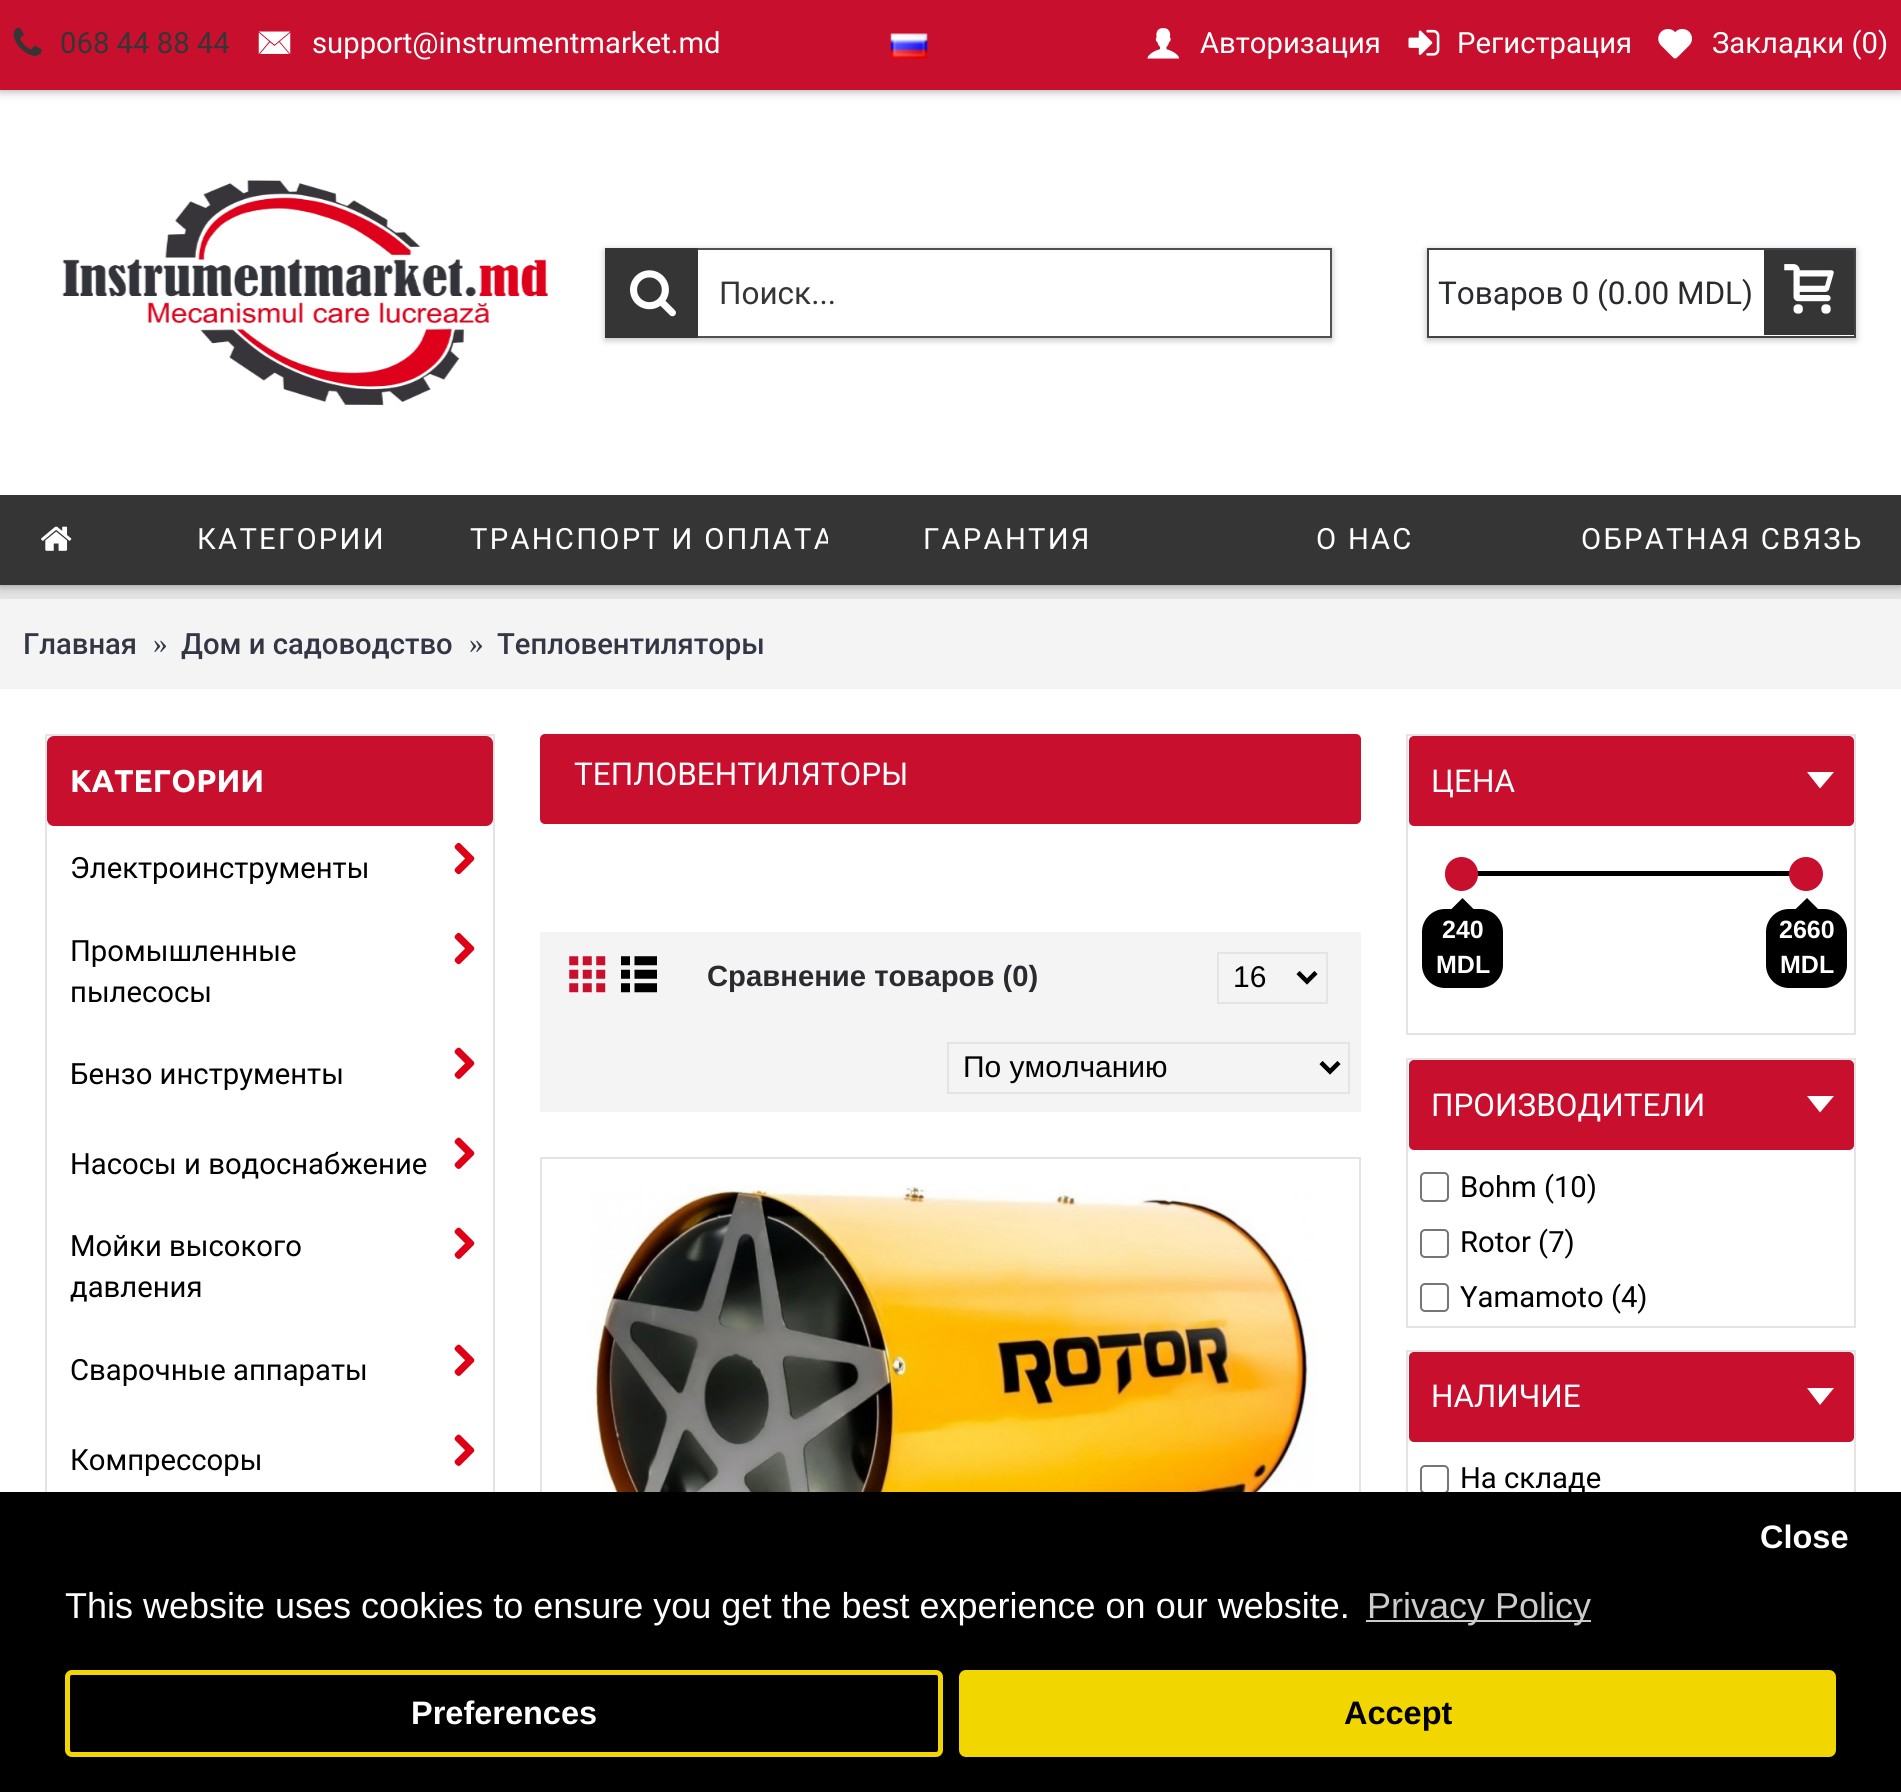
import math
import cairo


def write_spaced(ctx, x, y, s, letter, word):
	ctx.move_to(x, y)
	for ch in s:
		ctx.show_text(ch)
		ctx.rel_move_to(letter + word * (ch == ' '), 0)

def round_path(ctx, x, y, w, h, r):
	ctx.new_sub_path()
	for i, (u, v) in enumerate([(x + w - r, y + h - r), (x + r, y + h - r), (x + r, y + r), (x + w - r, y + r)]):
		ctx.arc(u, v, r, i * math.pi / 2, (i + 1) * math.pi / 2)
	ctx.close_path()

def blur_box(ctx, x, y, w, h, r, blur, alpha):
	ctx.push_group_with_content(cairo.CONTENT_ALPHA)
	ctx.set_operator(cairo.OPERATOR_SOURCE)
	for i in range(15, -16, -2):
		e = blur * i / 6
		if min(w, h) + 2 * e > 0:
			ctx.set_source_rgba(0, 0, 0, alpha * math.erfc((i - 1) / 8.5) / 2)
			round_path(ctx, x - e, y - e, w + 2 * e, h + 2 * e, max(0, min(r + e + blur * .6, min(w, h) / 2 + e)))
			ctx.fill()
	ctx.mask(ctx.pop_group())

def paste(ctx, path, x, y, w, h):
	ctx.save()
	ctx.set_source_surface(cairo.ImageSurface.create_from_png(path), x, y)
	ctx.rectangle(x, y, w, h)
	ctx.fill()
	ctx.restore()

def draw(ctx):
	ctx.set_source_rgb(0.894, 0.894, 0.894)
	ctx.paint()
	ctx.set_source_rgb(0.957, 0.957, 0.957)
	ctx.rectangle(0, 599, 1901, 90)
	ctx.fill()
	ctx.set_source_rgb(0, 0, 0)
	blur_box(ctx, 0, 0, 1901, 585, 0, 5.5, 0.4)
	ctx.set_source_rgb(1, 1, 1)
	ctx.rectangle(0, 90, 1901, 405)
	ctx.fill()
	ctx.set_source_rgb(0, 0, 0)
	blur_box(ctx, 0, 0, 1901, 90, 0, 5.5, 0.4)
	ctx.set_source_rgb(0.784, 0.063, 0.18)
	ctx.rectangle(0, 0, 1901, 90)
	ctx.fill()
	paste(ctx, 'media/1.png', 13, 27, 29, 29)
	ctx.select_font_face('Roboto')
	ctx.set_font_size(29.25)
	ctx.set_source_rgb(0.208, 0.208, 0.208)
	ctx.move_to(60, 53)
	ctx.show_text('068 44 88 44')
	paste(ctx, 'media/2.png', 258, 31, 33, 23)
	ctx.set_source_rgb(1, 1, 1)
	ctx.move_to(312, 53)
	ctx.show_text('support@instrumentmarket.md')
	paste(ctx, 'media/3.png', 890, 33, 38, 26)
	paste(ctx, 'media/4.png', 1147, 28, 32, 31)
	ctx.move_to(1200, 53)
	ctx.show_text('Авторизация')
	paste(ctx, 'media/5.png', 1408, 29, 32, 27)
	ctx.move_to(1457, 53)
	ctx.show_text('Регистрация')
	paste(ctx, 'media/6.png', 1658, 29, 34, 30)
	ctx.move_to(1712, 53)
	ctx.show_text('Закладки (0)')
	paste(ctx, 'media/7.png', 62, 180, 487, 225)
	ctx.set_source_rgb(0, 0, 0)
	blur_box(ctx, 605, 250, 727, 90, 0, 3.5, 0.25)
	ctx.set_source_rgb(1, 1, 1)
	ctx.rectangle(698, 250, 632, 86)
	ctx.fill()
	ctx.rectangle(606, 249, 725, 88)
	ctx.set_source_rgb(0.314, 0.314, 0.314)
	ctx.stroke()
	ctx.set_source_rgb(0.208, 0.208, 0.208)
	ctx.rectangle(605, 248, 93, 90)
	ctx.fill()
	paste(ctx, 'media/8.png', 630, 270, 46, 47)
	ctx.set_font_size(31.5)
	ctx.move_to(719, 304)
	ctx.show_text('Поиск...')
	ctx.save()
	ctx.set_fill_rule(cairo.FILL_RULE_EVEN_ODD)
	ctx.new_path()
	ctx.move_to(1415, 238)
	ctx.line_to(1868, 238)
	ctx.line_to(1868, 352)
	ctx.line_to(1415, 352)
	ctx.close_path()
	ctx.move_to(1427, 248)
	ctx.line_to(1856, 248)
	ctx.line_to(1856, 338)
	ctx.line_to(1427, 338)
	ctx.close_path()
	ctx.clip()
	ctx.set_source_rgb(0, 0, 0)
	blur_box(ctx, 1427, 250, 429, 90, 0, 3.5, 0.25)
	ctx.restore()
	ctx.rectangle(1428, 249, 427, 88)
	ctx.set_source_rgb(0.267, 0.263, 0.286)
	ctx.stroke()
	ctx.set_source_rgb(0.165, 0.169, 0.18)
	ctx.move_to(1438, 304)
	ctx.show_text('Товаров 0 (0.00 MDL)')
	ctx.set_source_rgb(0.208, 0.208, 0.208)
	ctx.rectangle(1764, 250, 90, 85)
	ctx.fill()
	paste(ctx, 'media/9.png', 1784, 264, 50, 50)
	ctx.rectangle(0, 495, 1901, 90)
	ctx.fill()
	paste(ctx, 'media/10.png', 41, 526, 31, 25)
	ctx.set_font_size(29.25)
	ctx.set_source_rgb(1, 1, 1)
	write_spaced(ctx, 197, 549, 'КАТЕГОРИИ', 2.25, 0)
	ctx.save()
	ctx.rectangle(470, 495, 358, 90)
	ctx.clip()
	write_spaced(ctx, 470, 549, 'ТРАНСПОРТ И ОПЛАТА', 2.25, 0)
	ctx.restore()
	for x, y, s in [
		(923, 549, 'ГАРАНТИЯ'),
		(1316, 549, 'О НАС'),
		(1581, 549, 'ОБРАТНАЯ СВЯЗЬ'),
	]:
		write_spaced(ctx, x, y, s, 2.25, 0)
	ctx.rectangle(0, 689, 1901, 803)
	ctx.fill()
	ctx.select_font_face('Roboto Medium')
	ctx.set_source_rgb(0.2, 0.216, 0.271)
	ctx.move_to(23, 654)
	ctx.show_text('Главная')
	ctx.select_font_face('Liberation Serif')
	ctx.move_to(153, 653)
	ctx.show_text('»')
	ctx.select_font_face('Roboto Medium')
	ctx.move_to(181, 654)
	ctx.show_text('Дом и садоводство')
	ctx.select_font_face('Liberation Serif')
	ctx.move_to(469, 653)
	ctx.show_text('»')
	ctx.select_font_face('Roboto Medium')
	ctx.move_to(497, 654)
	ctx.show_text('Тепловентиляторы')
	ctx.rectangle(46, 735, 448, 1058)
	ctx.set_source_rgb(0.894, 0.894, 0.894)
	ctx.stroke()
	ctx.set_source_rgb(0.784, 0.063, 0.18)
	round_path(ctx, 47, 736, 446, 90, 7)
	ctx.fill()
	ctx.select_font_face('Ubuntu', cairo.FONT_SLANT_NORMAL, cairo.FONT_WEIGHT_BOLD)
	ctx.set_font_size(31.5)
	ctx.set_source_rgb(1, 1, 1)
	ctx.move_to(70, 792)
	ctx.show_text('КАТЕГОРИИ')
	ctx.select_font_face('Roboto')
	ctx.set_font_size(29.25)
	ctx.set_source_rgb(0, 0, 0)
	ctx.move_to(70, 878)
	ctx.show_text('Электроинструменты')
	paste(ctx, 'media/11.png', 454, 842, 21, 33)
	ctx.move_to(70, 961)
	ctx.show_text('Промышленные')
	paste(ctx, 'media/11.png', 454, 932, 21, 33)
	ctx.move_to(70, 1002)
	ctx.show_text('пылесосы')
	ctx.move_to(70, 1084)
	ctx.show_text('Бензо инструменты')
	paste(ctx, 'media/12.png', 454, 1047, 21, 32)
	ctx.move_to(70, 1174)
	ctx.show_text('Насосы и водоснабжение')
	paste(ctx, 'media/12.png', 454, 1137, 21, 32)
	ctx.move_to(70, 1256)
	ctx.show_text('Мойки высокого')
	paste(ctx, 'media/12.png', 454, 1227, 21, 32)
	ctx.move_to(70, 1297)
	ctx.show_text('давления')
	ctx.move_to(70, 1380)
	ctx.show_text('Сварочные аппараты')
	paste(ctx, 'media/12.png', 454, 1344, 21, 32)
	ctx.move_to(70, 1470)
	ctx.show_text('Компрессоры')
	paste(ctx, 'media/12.png', 454, 1434, 21, 32)
	ctx.set_source_rgb(0.784, 0.063, 0.18)
	round_path(ctx, 540, 734, 821, 90, 5)
	ctx.fill()
	ctx.set_font_size(31.5)
	ctx.set_source_rgb(1, 1, 1)
	ctx.move_to(574, 785)
	ctx.show_text('ТЕПЛОВЕНТИЛЯТОРЫ')
	ctx.set_source_rgb(0.957, 0.957, 0.957)
	ctx.rectangle(540, 932, 821, 180)
	ctx.fill()
	paste(ctx, 'media/13.png', 569, 956, 37, 37)
	paste(ctx, 'media/14.png', 621, 956, 36, 37)
	ctx.select_font_face('Liberation Sans', cairo.FONT_SLANT_NORMAL, cairo.FONT_WEIGHT_BOLD)
	ctx.set_font_size(29.25)
	ctx.set_source_rgb(0.165, 0.169, 0.18)
	ctx.move_to(707, 986)
	ctx.show_text('Сравнение товаров (0)')
	ctx.rectangle(1218, 953, 109, 50)
	ctx.set_source_rgb(0.894, 0.894, 0.894)
	ctx.stroke()
	ctx.new_path()
	ctx.move_to(1298, 972.5)
	ctx.line_to(1307, 981.5)
	ctx.line_to(1316, 972.5)
	ctx.set_source_rgb(0, 0, 0)
	ctx.set_line_width(4.5)
	ctx.stroke()
	ctx.select_font_face('Liberation Sans')
	ctx.set_font_size(30)
	ctx.move_to(1233, 987)
	ctx.show_text('16')
	ctx.rectangle(948, 1043, 401, 50)
	ctx.set_source_rgb(0.894, 0.894, 0.894)
	ctx.set_line_width(2)
	ctx.stroke()
	ctx.new_path()
	ctx.move_to(1321, 1062.5)
	ctx.line_to(1330, 1071.5)
	ctx.line_to(1339, 1062.5)
	ctx.set_source_rgb(0, 0, 0)
	ctx.set_line_width(4.5)
	ctx.stroke()
	ctx.move_to(963, 1077)
	ctx.show_text('По умолчанию')
	ctx.rectangle(541, 1158, 819, 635)
	ctx.set_source_rgb(0.894, 0.894, 0.894)
	ctx.set_line_width(2)
	ctx.stroke()
	paste(ctx, 'media/15.png', 588, 1185, 728, 307)
	ctx.rectangle(1407, 735, 448, 299)
	ctx.stroke()
	ctx.set_source_rgb(0.784, 0.063, 0.18)
	round_path(ctx, 1409, 736, 445, 90, 5)
	ctx.fill()
	ctx.select_font_face('Roboto')
	ctx.set_font_size(31.5)
	ctx.set_source_rgb(1, 1, 1)
	ctx.move_to(1431, 792)
	ctx.show_text('ЦЕНА')
	ctx.new_path()
	ctx.move_to(1834, 772)
	ctx.line_to(1807, 772)
	ctx.line_to(1820, 788.5)
	ctx.close_path()
	ctx.fill()
	ctx.set_source_rgb(0, 0, 0)
	ctx.rectangle(1477, 871, 313, 5)
	ctx.fill()
	ctx.set_source_rgb(0.784, 0.063, 0.18)
	round_path(ctx, 1445, 857, 33, 34, 16.5)
	ctx.fill()
	ctx.set_source_rgb(0, 0, 0)
	round_path(ctx, 1422, 909, 81, 79, 23)
	ctx.fill()
	ctx.new_path()
	ctx.move_to(1478, 913.5)
	ctx.line_to(1447, 913.5)
	ctx.line_to(1462.5, 898)
	ctx.close_path()
	ctx.fill()
	ctx.select_font_face('Liberation Sans', cairo.FONT_SLANT_NORMAL, cairo.FONT_WEIGHT_BOLD)
	ctx.set_font_size(25)
	ctx.set_source_rgb(1, 1, 1)
	ctx.move_to(1442, 938)
	ctx.show_text('240')
	ctx.move_to(1436, 973)
	ctx.show_text('MDL')
	ctx.set_source_rgb(0.784, 0.063, 0.18)
	ctx.new_path()
	ctx.arc(1806, 874, 17, 0, 2 * math.pi)
	ctx.fill()
	ctx.set_source_rgb(0, 0, 0)
	round_path(ctx, 1766, 909, 81, 79, 23)
	ctx.fill()
	ctx.new_path()
	ctx.move_to(1822.5, 913.5)
	ctx.line_to(1791, 913.5)
	ctx.line_to(1807, 898)
	ctx.close_path()
	ctx.fill()
	ctx.set_source_rgb(1, 1, 1)
	ctx.move_to(1779, 938)
	ctx.show_text('2660')
	ctx.move_to(1780, 973)
	ctx.show_text('MDL')
	ctx.rectangle(1407, 1059, 448, 268)
	ctx.set_source_rgb(0.894, 0.894, 0.894)
	ctx.stroke()
	ctx.set_source_rgb(0.784, 0.063, 0.18)
	round_path(ctx, 1409, 1060, 445, 90, 5)
	ctx.fill()
	ctx.select_font_face('Roboto')
	ctx.set_font_size(31.5)
	ctx.set_source_rgb(1, 1, 1)
	ctx.move_to(1431, 1116)
	ctx.show_text('ПРОИЗВОДИТЕЛИ')
	ctx.new_path()
	ctx.move_to(1834, 1096)
	ctx.line_to(1807, 1096)
	ctx.line_to(1820, 1112.5)
	ctx.close_path()
	ctx.fill()
	round_path(ctx, 1421, 1173, 27, 28, 4)
	ctx.set_source_rgb(0.463, 0.463, 0.463)
	ctx.stroke()
	ctx.set_font_size(29.25)
	ctx.set_source_rgb(0, 0, 0)
	ctx.move_to(1460, 1197)
	ctx.show_text('Bohm (10)')
	round_path(ctx, 1421, 1230, 27, 27, 4)
	ctx.set_source_rgb(0.463, 0.463, 0.463)
	ctx.stroke()
	ctx.set_source_rgb(0, 0, 0)
	ctx.move_to(1460, 1252)
	ctx.show_text('Rotor (7)')
	round_path(ctx, 1421, 1284, 27, 27, 4)
	ctx.set_source_rgb(0.463, 0.463, 0.463)
	ctx.stroke()
	ctx.set_source_rgb(0, 0, 0)
	ctx.move_to(1460, 1307)
	ctx.show_text('Yamamoto (4)')
	ctx.rectangle(1407, 1351, 448, 212)
	ctx.set_source_rgb(0.894, 0.894, 0.894)
	ctx.stroke()
	ctx.set_source_rgb(0.784, 0.063, 0.18)
	round_path(ctx, 1409, 1352, 445, 90, 5)
	ctx.fill()
	ctx.set_font_size(31.5)
	ctx.set_source_rgb(1, 1, 1)
	ctx.move_to(1431, 1407)
	ctx.show_text('НАЛИЧИЕ')
	ctx.new_path()
	ctx.move_to(1834, 1388)
	ctx.line_to(1807, 1388)
	ctx.line_to(1820, 1405)
	ctx.close_path()
	ctx.fill()
	round_path(ctx, 1421, 1466, 27, 27, 4)
	ctx.set_source_rgb(0.463, 0.463, 0.463)
	ctx.stroke()
	ctx.set_font_size(29.25)
	ctx.set_source_rgb(0, 0, 0)
	ctx.move_to(1460, 1488)
	ctx.show_text('На складе')
	ctx.rectangle(0, 1492, 1901, 300)
	ctx.fill()
	ctx.select_font_face('Liberation Sans', cairo.FONT_SLANT_NORMAL, cairo.FONT_WEIGHT_BOLD)
	ctx.set_font_size(32.5)
	ctx.set_source_rgb(1, 1, 1)
	ctx.move_to(1760, 1548)
	ctx.show_text('Close')
	round_path(ctx, 67.5, 1672.5, 873, 82, 4.5)
	ctx.set_source_rgb(0.945, 0.839, 0)
	ctx.set_line_width(5)
	ctx.stroke()
	ctx.set_source_rgb(1, 1, 1)
	ctx.move_to(411, 1724)
	ctx.show_text('Preferences')
	ctx.set_source_rgb(0.945, 0.839, 0)
	round_path(ctx, 959, 1670, 877, 87, 7)
	ctx.fill()
	ctx.set_source_rgb(0, 0, 0)
	ctx.move_to(1344, 1724)
	ctx.show_text('Accept')
	ctx.select_font_face('Liberation Sans')
	ctx.set_font_size(36)
	ctx.set_source_rgb(1, 1, 1)
	ctx.move_to(65, 1618)
	ctx.show_text('This website uses cookies to ensure you get the best experience on our website.')
	ctx.set_source_rgb(0.8, 0.8, 0.8)
	ctx.rectangle(1366, 1620, 225, 2)
	ctx.fill()
	ctx.move_to(1367, 1618)
	ctx.show_text('Privacy Policy')


surface = cairo.ImageSurface(cairo.FORMAT_RGB24, 1901, 1792)
ctx = cairo.Context(surface)
options = cairo.FontOptions()
options.set_hint_metrics(cairo.HINT_METRICS_OFF)
options.set_hint_style(cairo.HINT_STYLE_NONE)
ctx.set_font_options(options)
ctx.set_miter_limit(4)
draw(ctx)
surface.write_to_png('image.png')
